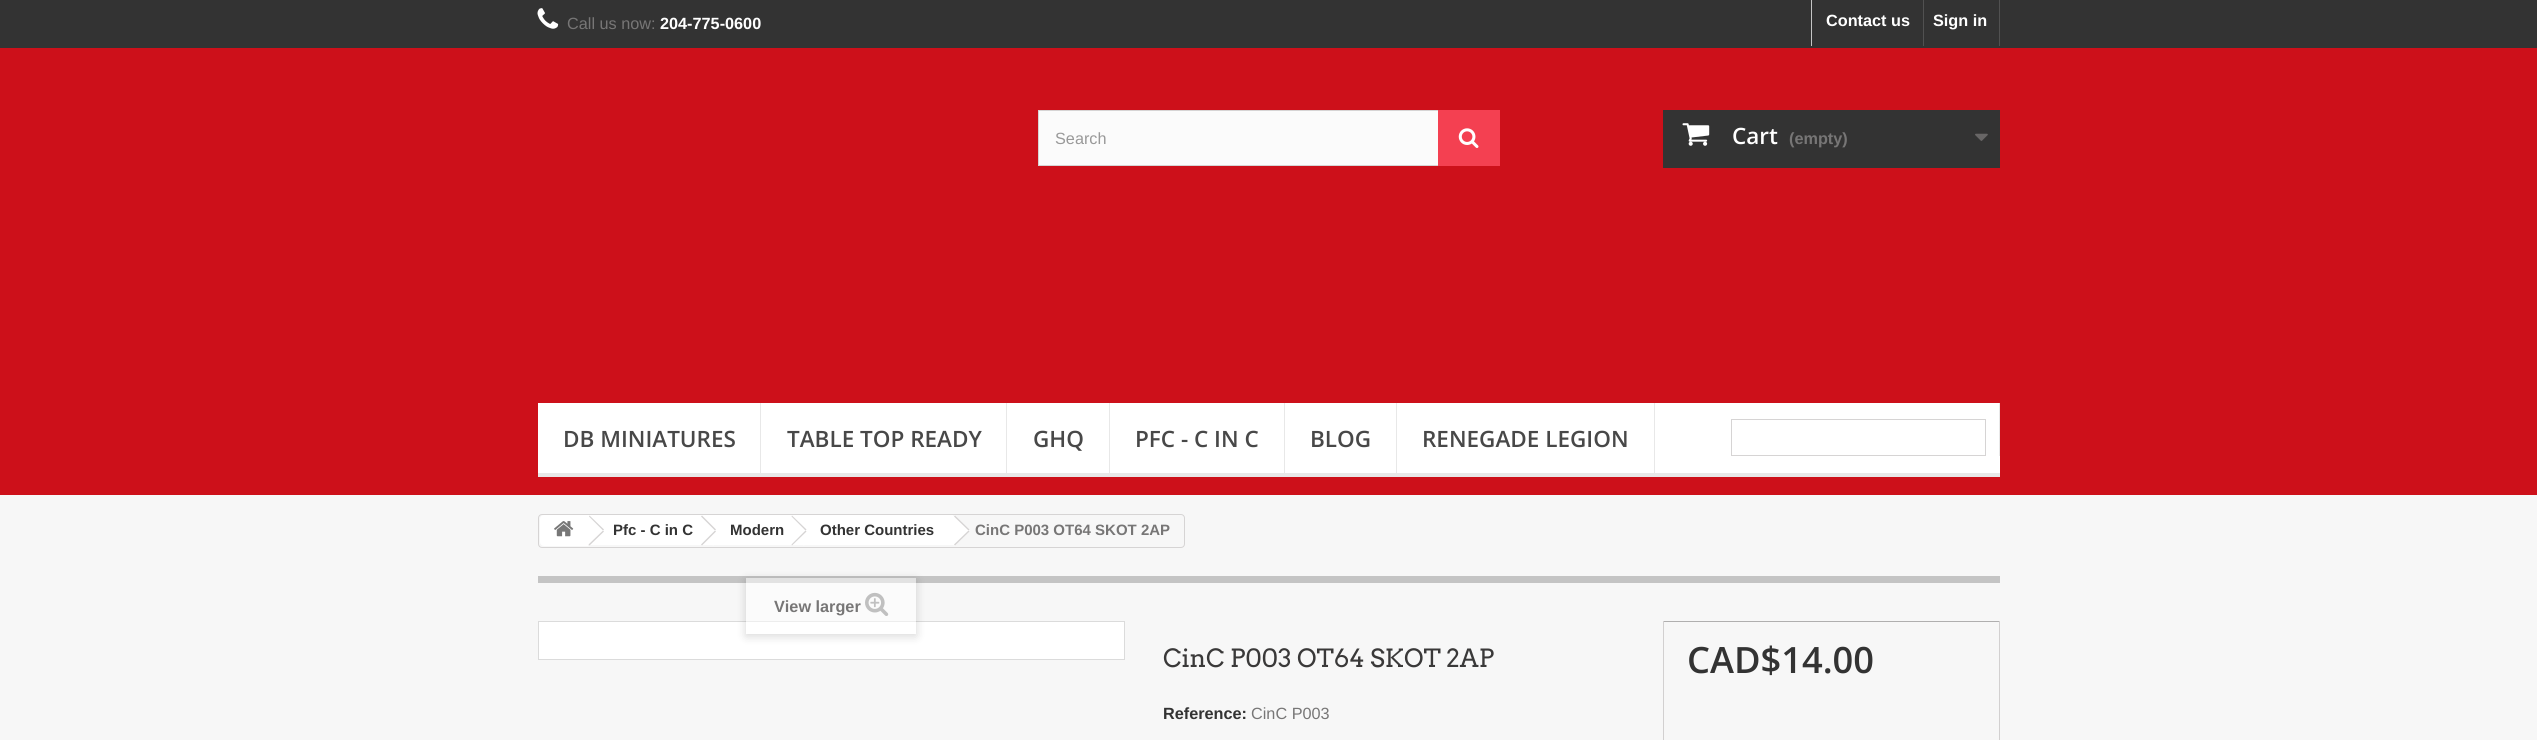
import math
import cairo


def round_path(ctx, x, y, w, h, r):
	ctx.new_sub_path()
	for i, (u, v) in enumerate([(x + w - r, y + h - r), (x + r, y + h - r), (x + r, y + r), (x + w - r, y + r)]):
		ctx.arc(u, v, r, i * math.pi / 2, (i + 1) * math.pi / 2)
	ctx.close_path()

def blur_box(ctx, x, y, w, h, r, blur, alpha):
	ctx.push_group_with_content(cairo.CONTENT_ALPHA)
	ctx.set_operator(cairo.OPERATOR_SOURCE)
	for i in range(15, -16, -2):
		e = blur * i / 6
		if min(w, h) + 2 * e > 0:
			ctx.set_source_rgba(0, 0, 0, alpha * math.erfc((i - 1) / 8.5) / 2)
			round_path(ctx, x - e, y - e, w + 2 * e, h + 2 * e, max(0, min(r + e + blur * .6, min(w, h) / 2 + e)))
			ctx.fill()
	ctx.mask(ctx.pop_group())

def paste(ctx, path, x, y, w, h):
	ctx.save()
	ctx.set_source_surface(cairo.ImageSurface.create_from_png(path), x, y)
	ctx.rectangle(x, y, w, h)
	ctx.fill()
	ctx.restore()

def draw(ctx):
	ctx.set_source_rgb(0.804, 0.063, 0.102)
	ctx.paint()
	ctx.set_source_rgb(0.2, 0.2, 0.2)
	ctx.rectangle(0, 0, 2537, 48)
	ctx.fill()
	paste(ctx, 'media/1.png', 537, 8, 22, 21)
	ctx.select_font_face('Liberation Sans')
	ctx.set_font_size(16.25)
	ctx.set_source_rgb(0.467, 0.463, 0.463)
	ctx.move_to(567, 29)
	ctx.show_text('Call us now:')
	ctx.select_font_face('Liberation Sans', cairo.FONT_SLANT_NORMAL, cairo.FONT_WEIGHT_BOLD)
	ctx.set_source_rgb(1, 1, 1)
	ctx.move_to(660, 29)
	ctx.show_text('204-775-0600')
	ctx.set_source_rgb(0.776, 0.776, 0.776)
	ctx.rectangle(1811, 0, 1, 46)
	ctx.fill()
	ctx.set_source_rgb(1, 1, 1)
	ctx.move_to(1826, 26)
	ctx.show_text('Contact us')
	ctx.set_source_rgb(0.318, 0.318, 0.318)
	ctx.rectangle(1999, 0, 1, 46)
	ctx.fill()
	ctx.rectangle(1923, 0, 1, 46)
	ctx.fill()
	ctx.set_source_rgb(1, 1, 1)
	ctx.move_to(1933, 26)
	ctx.show_text('Sign in')
	ctx.set_source_rgb(0.984, 0.984, 0.984)
	ctx.rectangle(1039, 111, 399, 54)
	ctx.fill()
	ctx.rectangle(1038.5, 110.5, 461, 55)
	ctx.set_source_rgb(0.839, 0.831, 0.831)
	ctx.set_line_width(1)
	ctx.stroke()
	ctx.select_font_face('Liberation Sans')
	ctx.set_source_rgb(0.6, 0.6, 0.6)
	ctx.move_to(1055, 144)
	ctx.show_text('Search')
	ctx.set_source_rgb(0.957, 0.251, 0.318)
	ctx.rectangle(1438, 110, 62, 56)
	ctx.fill()
	paste(ctx, 'media/2.png', 1458, 128, 21, 20)
	ctx.set_source_rgb(0.2, 0.2, 0.2)
	ctx.rectangle(1663, 110, 337, 58)
	ctx.fill()
	paste(ctx, 'media/3.png', 1682, 123, 28, 23)
	ctx.select_font_face('Open Sans SemiBold')
	ctx.set_font_size(22.5)
	ctx.set_source_rgb(1, 1, 1)
	ctx.move_to(1732, 144)
	ctx.show_text('Cart')
	ctx.select_font_face('Liberation Sans', cairo.FONT_SLANT_NORMAL, cairo.FONT_WEIGHT_BOLD)
	ctx.set_font_size(16.25)
	ctx.set_source_rgb(0.467, 0.463, 0.463)
	ctx.move_to(1789, 144)
	ctx.show_text('(empty)')
	paste(ctx, 'media/4.png', 1975, 133, 13, 8)
	ctx.set_source_rgb(1, 1, 1)
	ctx.rectangle(538, 403, 1462, 70)
	ctx.fill()
	ctx.set_source_rgb(0.91, 0.91, 0.91)
	ctx.rectangle(538, 473, 1462, 4)
	ctx.rectangle(760, 403, 1, 73)
	ctx.fill()
	ctx.select_font_face('Open Sans SemiBold')
	ctx.set_font_size(22.5)
	ctx.set_source_rgb(0.282, 0.282, 0.282)
	ctx.move_to(563, 447)
	ctx.show_text('DB MINIATURES')
	ctx.set_source_rgb(0.91, 0.91, 0.91)
	ctx.rectangle(1006, 403, 1, 73)
	ctx.fill()
	ctx.set_source_rgb(0.282, 0.282, 0.282)
	ctx.move_to(787, 447)
	ctx.show_text('TABLE TOP READY')
	ctx.set_source_rgb(0.91, 0.91, 0.91)
	ctx.rectangle(1109, 403, 1, 73)
	ctx.fill()
	ctx.set_source_rgb(0.282, 0.282, 0.282)
	ctx.move_to(1033, 447)
	ctx.show_text('GHQ')
	ctx.set_source_rgb(0.91, 0.91, 0.91)
	ctx.rectangle(1284, 403, 1, 73)
	ctx.fill()
	ctx.set_source_rgb(0.282, 0.282, 0.282)
	ctx.move_to(1135, 447)
	ctx.show_text('PFC - C IN C')
	ctx.set_source_rgb(0.91, 0.91, 0.91)
	ctx.rectangle(1396, 403, 1, 73)
	ctx.fill()
	ctx.set_source_rgb(0.282, 0.282, 0.282)
	ctx.move_to(1310, 447)
	ctx.show_text('BLOG')
	ctx.set_source_rgb(0.91, 0.91, 0.91)
	ctx.rectangle(1654, 403, 1, 73)
	ctx.fill()
	ctx.set_source_rgb(0.282, 0.282, 0.282)
	ctx.move_to(1422, 447)
	ctx.show_text('RENEGADE LEGION')
	ctx.set_source_rgb(0.91, 0.91, 0.91)
	ctx.rectangle(1999, 403, 1, 53)
	ctx.fill()
	ctx.rectangle(1731.5, 419.5, 254, 36)
	ctx.set_source_rgb(0.839, 0.831, 0.831)
	ctx.stroke()
	ctx.set_source_rgb(0.965, 0.965, 0.965)
	ctx.rectangle(0, 495, 2537, 245)
	ctx.fill()
	round_path(ctx, 538.5, 514.5, 646, 33, 3.5)
	ctx.set_source_rgb(0.839, 0.831, 0.831)
	ctx.stroke()
	ctx.set_source_rgb(1, 1, 1)
	ctx.new_path()
	ctx.move_to(544, 515)
	ctx.line_to(588, 515)
	ctx.line_to(588, 546)
	ctx.line_to(544, 546)
	ctx.curve_to(542, 546, 540, 544, 540, 542)
	ctx.line_to(540, 519)
	ctx.curve_to(540, 517, 542, 515, 544, 515)
	ctx.close_path()
	ctx.fill()
	paste(ctx, 'media/5.png', 554, 521, 20, 16)
	ctx.rectangle(588, 515, 115, 30)
	ctx.fill()
	ctx.set_source_rgb(0.839, 0.831, 0.831)
	ctx.new_path()
	ctx.move_to(589.5, 515.5)
	ctx.line_to(604, 529.5)
	ctx.line_to(603, 530.5)
	ctx.line_to(589, 516.5)
	ctx.close_path()
	ctx.fill()
	ctx.new_path()
	ctx.move_to(603, 530.5)
	ctx.line_to(604, 531.5)
	ctx.line_to(589.5, 545.5)
	ctx.line_to(588.5, 544.5)
	ctx.close_path()
	ctx.fill()
	ctx.select_font_face('Liberation Sans', cairo.FONT_SLANT_NORMAL, cairo.FONT_WEIGHT_BOLD)
	ctx.set_font_size(15)
	ctx.set_source_rgb(0.2, 0.2, 0.2)
	ctx.move_to(613, 535)
	ctx.show_text('Pfc - C in C')
	ctx.set_source_rgb(1, 1, 1)
	ctx.new_path()
	ctx.move_to(715, 516.5)
	ctx.line_to(727.5, 528.5)
	ctx.curve_to(728.5, 529.5, 728.5, 531.5, 727.5, 532.5)
	ctx.line_to(715, 544.5)
	ctx.curve_to(714, 545.5, 712.5, 545.5, 711.5, 544.5)
	ctx.line_to(699, 532.5)
	ctx.curve_to(698.5, 531.5, 698.5, 529.5, 699, 528.5)
	ctx.line_to(711.5, 516.5)
	ctx.curve_to(712.5, 515.5, 714, 515.5, 715, 516.5)
	ctx.close_path()
	ctx.fill()
	ctx.rectangle(703, 515, 90, 30)
	ctx.fill()
	ctx.set_source_rgb(0.839, 0.831, 0.831)
	ctx.new_path()
	ctx.move_to(702, 515.5)
	ctx.line_to(716, 529.5)
	ctx.line_to(715, 530.5)
	ctx.line_to(701, 516.5)
	ctx.close_path()
	ctx.fill()
	ctx.new_path()
	ctx.move_to(715, 530.5)
	ctx.line_to(716, 531.5)
	ctx.line_to(702, 545.5)
	ctx.line_to(701, 544.5)
	ctx.close_path()
	ctx.fill()
	ctx.set_source_rgb(0.2, 0.2, 0.2)
	ctx.move_to(730, 535)
	ctx.show_text('Modern')
	ctx.set_source_rgb(1, 1, 1)
	ctx.new_path()
	ctx.move_to(805.5, 516.5)
	ctx.line_to(818, 528.5)
	ctx.curve_to(819, 529.5, 819, 531.5, 818, 532.5)
	ctx.line_to(805.5, 544.5)
	ctx.curve_to(804.5, 545.5, 803, 545.5, 802, 544.5)
	ctx.line_to(789.5, 532.5)
	ctx.curve_to(788.5, 531.5, 788.5, 529.5, 789.5, 528.5)
	ctx.line_to(802, 516.5)
	ctx.curve_to(803, 515.5, 804.5, 515.5, 805.5, 516.5)
	ctx.close_path()
	ctx.fill()
	ctx.rectangle(793, 515, 160, 30)
	ctx.fill()
	ctx.set_source_rgb(0.839, 0.831, 0.831)
	ctx.new_path()
	ctx.move_to(792, 515.5)
	ctx.line_to(806.5, 529.5)
	ctx.line_to(805.5, 530.5)
	ctx.line_to(791.5, 516.5)
	ctx.close_path()
	ctx.fill()
	ctx.new_path()
	ctx.move_to(805.5, 530.5)
	ctx.line_to(806.5, 531.5)
	ctx.line_to(792, 545.5)
	ctx.line_to(791.5, 544.5)
	ctx.close_path()
	ctx.fill()
	ctx.set_source_rgb(0.2, 0.2, 0.2)
	ctx.move_to(820, 535)
	ctx.show_text('Other Countries')
	ctx.set_source_rgb(1, 1, 1)
	ctx.new_path()
	ctx.move_to(956, 516.5)
	ctx.line_to(968.5, 528.5)
	ctx.curve_to(969.5, 529.5, 969.5, 531.5, 968.5, 532.5)
	ctx.line_to(956, 544.5)
	ctx.curve_to(955, 545.5, 953.5, 545.5, 952.5, 544.5)
	ctx.line_to(940, 532.5)
	ctx.curve_to(939, 531.5, 939, 529.5, 940, 528.5)
	ctx.line_to(952.5, 516.5)
	ctx.curve_to(953.5, 515.5, 955, 515.5, 956, 516.5)
	ctx.close_path()
	ctx.fill()
	ctx.set_source_rgb(0.839, 0.831, 0.831)
	ctx.new_path()
	ctx.move_to(955, 515.5)
	ctx.line_to(969.5, 529.5)
	ctx.line_to(968.5, 530.5)
	ctx.line_to(954, 516.5)
	ctx.close_path()
	ctx.fill()
	ctx.new_path()
	ctx.move_to(968.5, 530.5)
	ctx.line_to(969.5, 531.5)
	ctx.line_to(955, 545.5)
	ctx.line_to(954, 544.5)
	ctx.close_path()
	ctx.fill()
	ctx.set_source_rgb(0.467, 0.463, 0.463)
	ctx.move_to(975, 535)
	ctx.show_text('CinC P003 OT64 SKOT 2AP')
	ctx.set_source_rgb(0.769, 0.769, 0.769)
	ctx.rectangle(538, 576, 1462, 7)
	ctx.fill()
	ctx.set_source_rgb(1, 1, 1)
	ctx.rectangle(538.5, 621.5, 586, 38)
	ctx.fill_preserve()
	ctx.set_source_rgb(0.859, 0.859, 0.859)
	ctx.stroke()
	ctx.save()
	ctx.set_fill_rule(cairo.FILL_RULE_EVEN_ODD)
	ctx.new_path()
	ctx.move_to(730, 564)
	ctx.line_to(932, 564)
	ctx.line_to(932, 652)
	ctx.line_to(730, 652)
	ctx.close_path()
	ctx.move_to(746, 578)
	ctx.line_to(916, 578)
	ctx.line_to(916, 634)
	ctx.line_to(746, 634)
	ctx.close_path()
	ctx.clip()
	ctx.set_source_rgb(0, 0, 0)
	blur_box(ctx, 746, 580, 170, 56, 0, 5, 0.16)
	ctx.restore()
	ctx.set_source_rgba(1, 1, 1, 0.5)
	ctx.rectangle(746, 578, 170, 56)
	ctx.fill()
	ctx.set_font_size(16.25)
	ctx.set_source_rgb(0.467, 0.463, 0.463)
	ctx.move_to(774, 612)
	ctx.show_text('View larger')
	paste(ctx, 'media/6.png', 865, 592, 24, 24)
	ctx.select_font_face('Arvo')
	ctx.set_font_size(25)
	ctx.set_source_rgb(0.227, 0.224, 0.224)
	ctx.move_to(1163, 667)
	ctx.show_text('CinC P003 OT64 SKOT 2AP')
	ctx.select_font_face('Liberation Sans', cairo.FONT_SLANT_NORMAL, cairo.FONT_WEIGHT_BOLD)
	ctx.set_font_size(16.25)
	ctx.set_source_rgb(0.2, 0.2, 0.2)
	ctx.move_to(1163, 719)
	ctx.show_text('Reference:')
	ctx.select_font_face('Liberation Sans')
	ctx.set_source_rgb(0.467, 0.463, 0.463)
	ctx.move_to(1251, 719)
	ctx.show_text('CinC P003')
	ctx.set_source_rgb(0.69, 0.686, 0.686)
	ctx.rectangle(1663, 621, 337, 1)
	ctx.fill()
	ctx.set_source_rgb(0.824, 0.816, 0.816)
	ctx.rectangle(1999, 621, 1, 119)
	ctx.rectangle(1663, 621, 1, 119)
	ctx.fill()
	ctx.select_font_face('Open Sans SemiBold')
	ctx.set_font_size(36.25)
	ctx.set_source_rgb(0.2, 0.2, 0.2)
	ctx.move_to(1687, 673)
	ctx.show_text('CAD$14.00')


surface = cairo.ImageSurface(cairo.FORMAT_RGB24, 2537, 740)
ctx = cairo.Context(surface)
options = cairo.FontOptions()
options.set_hint_metrics(cairo.HINT_METRICS_OFF)
options.set_hint_style(cairo.HINT_STYLE_NONE)
ctx.set_font_options(options)
ctx.set_miter_limit(4)
draw(ctx)
surface.write_to_png('image.png')
